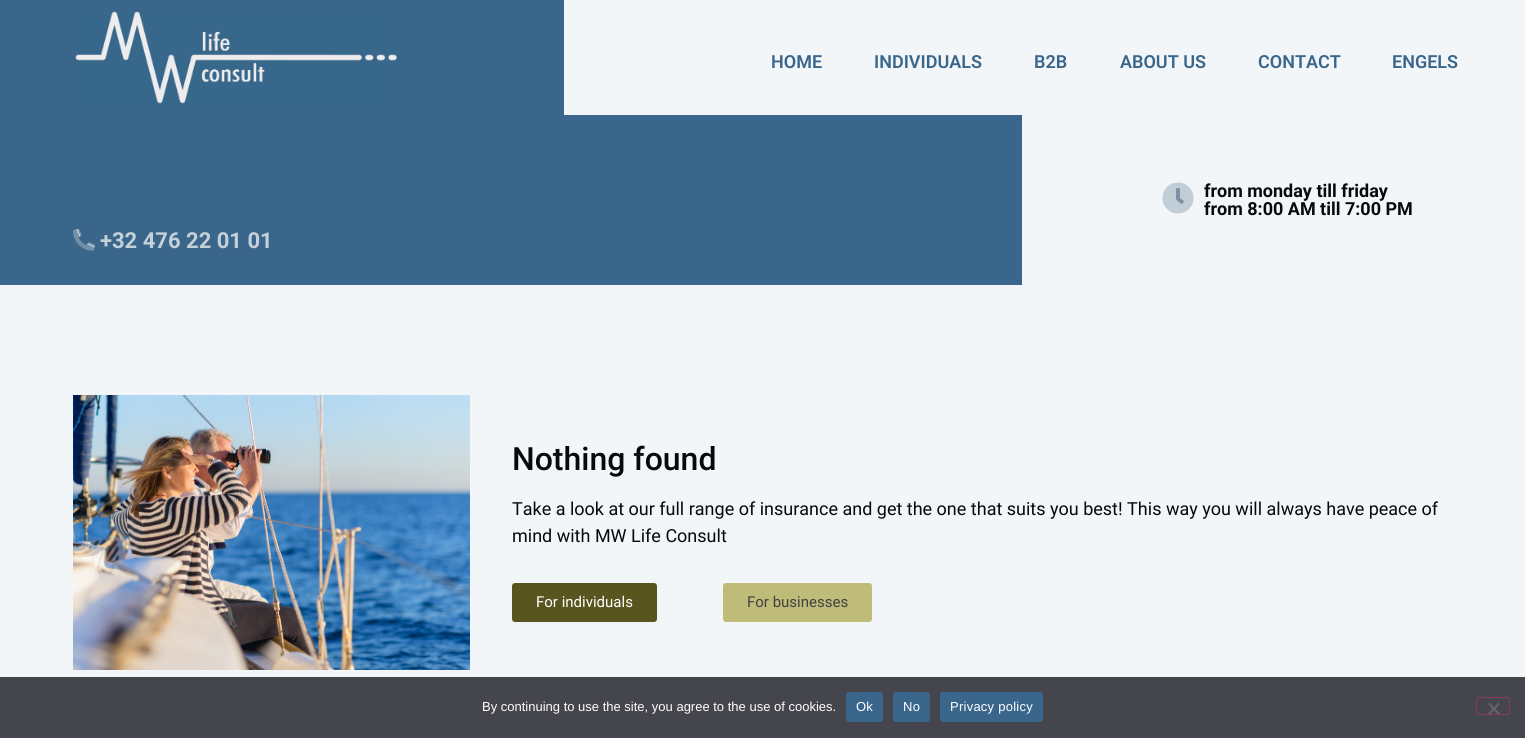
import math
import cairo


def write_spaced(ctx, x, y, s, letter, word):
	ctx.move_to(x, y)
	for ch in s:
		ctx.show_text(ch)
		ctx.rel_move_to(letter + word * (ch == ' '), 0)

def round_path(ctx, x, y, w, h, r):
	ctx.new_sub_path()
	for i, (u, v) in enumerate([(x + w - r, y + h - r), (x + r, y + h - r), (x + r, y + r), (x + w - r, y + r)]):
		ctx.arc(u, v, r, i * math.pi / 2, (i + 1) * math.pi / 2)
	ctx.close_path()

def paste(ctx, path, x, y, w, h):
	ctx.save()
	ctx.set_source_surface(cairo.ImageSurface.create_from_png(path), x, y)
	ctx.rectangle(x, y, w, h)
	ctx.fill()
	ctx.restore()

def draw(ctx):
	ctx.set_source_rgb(0.949, 0.961, 0.973)
	ctx.paint()
	ctx.set_source_rgb(0.231, 0.4, 0.549)
	ctx.rectangle(0, 0, 564, 115)
	ctx.fill()
	paste(ctx, 'media/1.png', 75, 11, 322, 93)
	ctx.select_font_face('Roboto SemiBold')
	ctx.set_font_size(18)
	for x, y, s in [
		(771, 68, 'HOME'),
		(874, 68, 'INDIVIDUALS'),
		(1034, 68, 'B2B'),
		(1120, 68, 'ABOUT US'),
		(1258, 68, 'CONTACT'),
		(1392, 68, 'ENGELS'),
	]:
		ctx.move_to(x, y)
		ctx.show_text(s)
	ctx.rectangle(0, 115, 1022, 170)
	ctx.fill()
	paste(ctx, 'media/3.png', 1176, 188, 8, 16)
	paste(ctx, 'media/2.png', 1162, 182, 32, 32)
	ctx.select_font_face('Roboto', cairo.FONT_SLANT_NORMAL, cairo.FONT_WEIGHT_BOLD)
	ctx.set_source_rgb(0.024, 0.039, 0.055)
	ctx.move_to(1204, 197)
	ctx.show_text('from monday till friday')
	ctx.move_to(1204, 215)
	ctx.show_text('from 8:00 AM till 7:00 PM')
	paste(ctx, 'media/5.png', 76, 229, 19, 19)
	paste(ctx, 'media/4.png', 73, 228, 22, 23)
	ctx.set_font_size(22)
	ctx.set_source_rgb(0.773, 0.82, 0.851)
	ctx.move_to(100, 248)
	ctx.show_text('+32 476 22 01 01')
	paste(ctx, 'media/6.png', 73, 395, 397, 275)
	ctx.select_font_face('Roboto Medium')
	ctx.set_font_size(32)
	ctx.set_source_rgb(0.024, 0.039, 0.055)
	ctx.move_to(512, 470)
	ctx.show_text('Nothing found')
	ctx.select_font_face('Roboto')
	ctx.set_font_size(18)
	ctx.move_to(512, 515)
	ctx.show_text('Take a look at our full range of insurance and get the one that suits you best! This way you will always have peace of')
	ctx.move_to(512, 542)
	ctx.show_text('mind with MW Life Consult')
	ctx.set_source_rgb(0.349, 0.333, 0.118)
	round_path(ctx, 512, 583, 145, 39, 3)
	ctx.fill()
	ctx.set_font_size(15)
	ctx.set_source_rgb(1, 1, 1)
	ctx.move_to(536, 607)
	ctx.show_text('For individuals')
	ctx.set_source_rgb(0.749, 0.733, 0.471)
	round_path(ctx, 723, 583, 149, 39, 3)
	ctx.fill()
	ctx.set_source_rgb(0.259, 0.259, 0.259)
	ctx.move_to(747, 607)
	ctx.show_text('For businesses')
	ctx.set_source_rgb(0.271, 0.271, 0.302)
	ctx.rectangle(0, 677, 1525, 61)
	ctx.fill()
	ctx.select_font_face('Liberation Sans')
	ctx.set_font_size(13)
	ctx.set_source_rgb(1, 1, 1)
	ctx.move_to(482, 711)
	ctx.show_text('By continuing to use the site, you agree to the use of cookies.')
	ctx.set_source_rgb(0.231, 0.4, 0.549)
	round_path(ctx, 846, 692, 37, 30, 3)
	ctx.fill()
	ctx.set_source_rgb(1, 1, 1)
	write_spaced(ctx, 856, 711, 'Ok', 0.25, 0)
	ctx.set_source_rgb(0.231, 0.4, 0.549)
	round_path(ctx, 893, 692, 37, 30, 3)
	ctx.fill()
	ctx.set_source_rgb(1, 1, 1)
	write_spaced(ctx, 903, 711, 'No', 0.25, 0)
	ctx.set_source_rgb(0.231, 0.4, 0.549)
	round_path(ctx, 940, 692, 103, 30, 3)
	ctx.fill()
	ctx.set_source_rgb(1, 1, 1)
	write_spaced(ctx, 950, 711, 'Privacy policy', 0.25, 0)
	round_path(ctx, 1476.5, 697.5, 33, 17, 2.5)
	ctx.set_source_rgb(0.537, 0.235, 0.353)
	ctx.set_line_width(1)
	ctx.stroke()
	ctx.set_source_rgb(0.388, 0.388, 0.404)
	ctx.new_path()
	ctx.move_to(1498.5, 702.5)
	ctx.line_to(1500, 704)
	ctx.line_to(1489.5, 715)
	ctx.line_to(1488, 713.5)
	ctx.close_path()
	ctx.fill()
	ctx.new_path()
	ctx.move_to(1488, 704)
	ctx.line_to(1489.5, 702.5)
	ctx.line_to(1500, 713.5)
	ctx.line_to(1498.5, 715)
	ctx.close_path()
	ctx.fill()


surface = cairo.ImageSurface(cairo.FORMAT_RGB24, 1525, 738)
ctx = cairo.Context(surface)
options = cairo.FontOptions()
options.set_hint_metrics(cairo.HINT_METRICS_OFF)
options.set_hint_style(cairo.HINT_STYLE_NONE)
ctx.set_font_options(options)
ctx.set_miter_limit(4)
draw(ctx)
surface.write_to_png('image.png')
